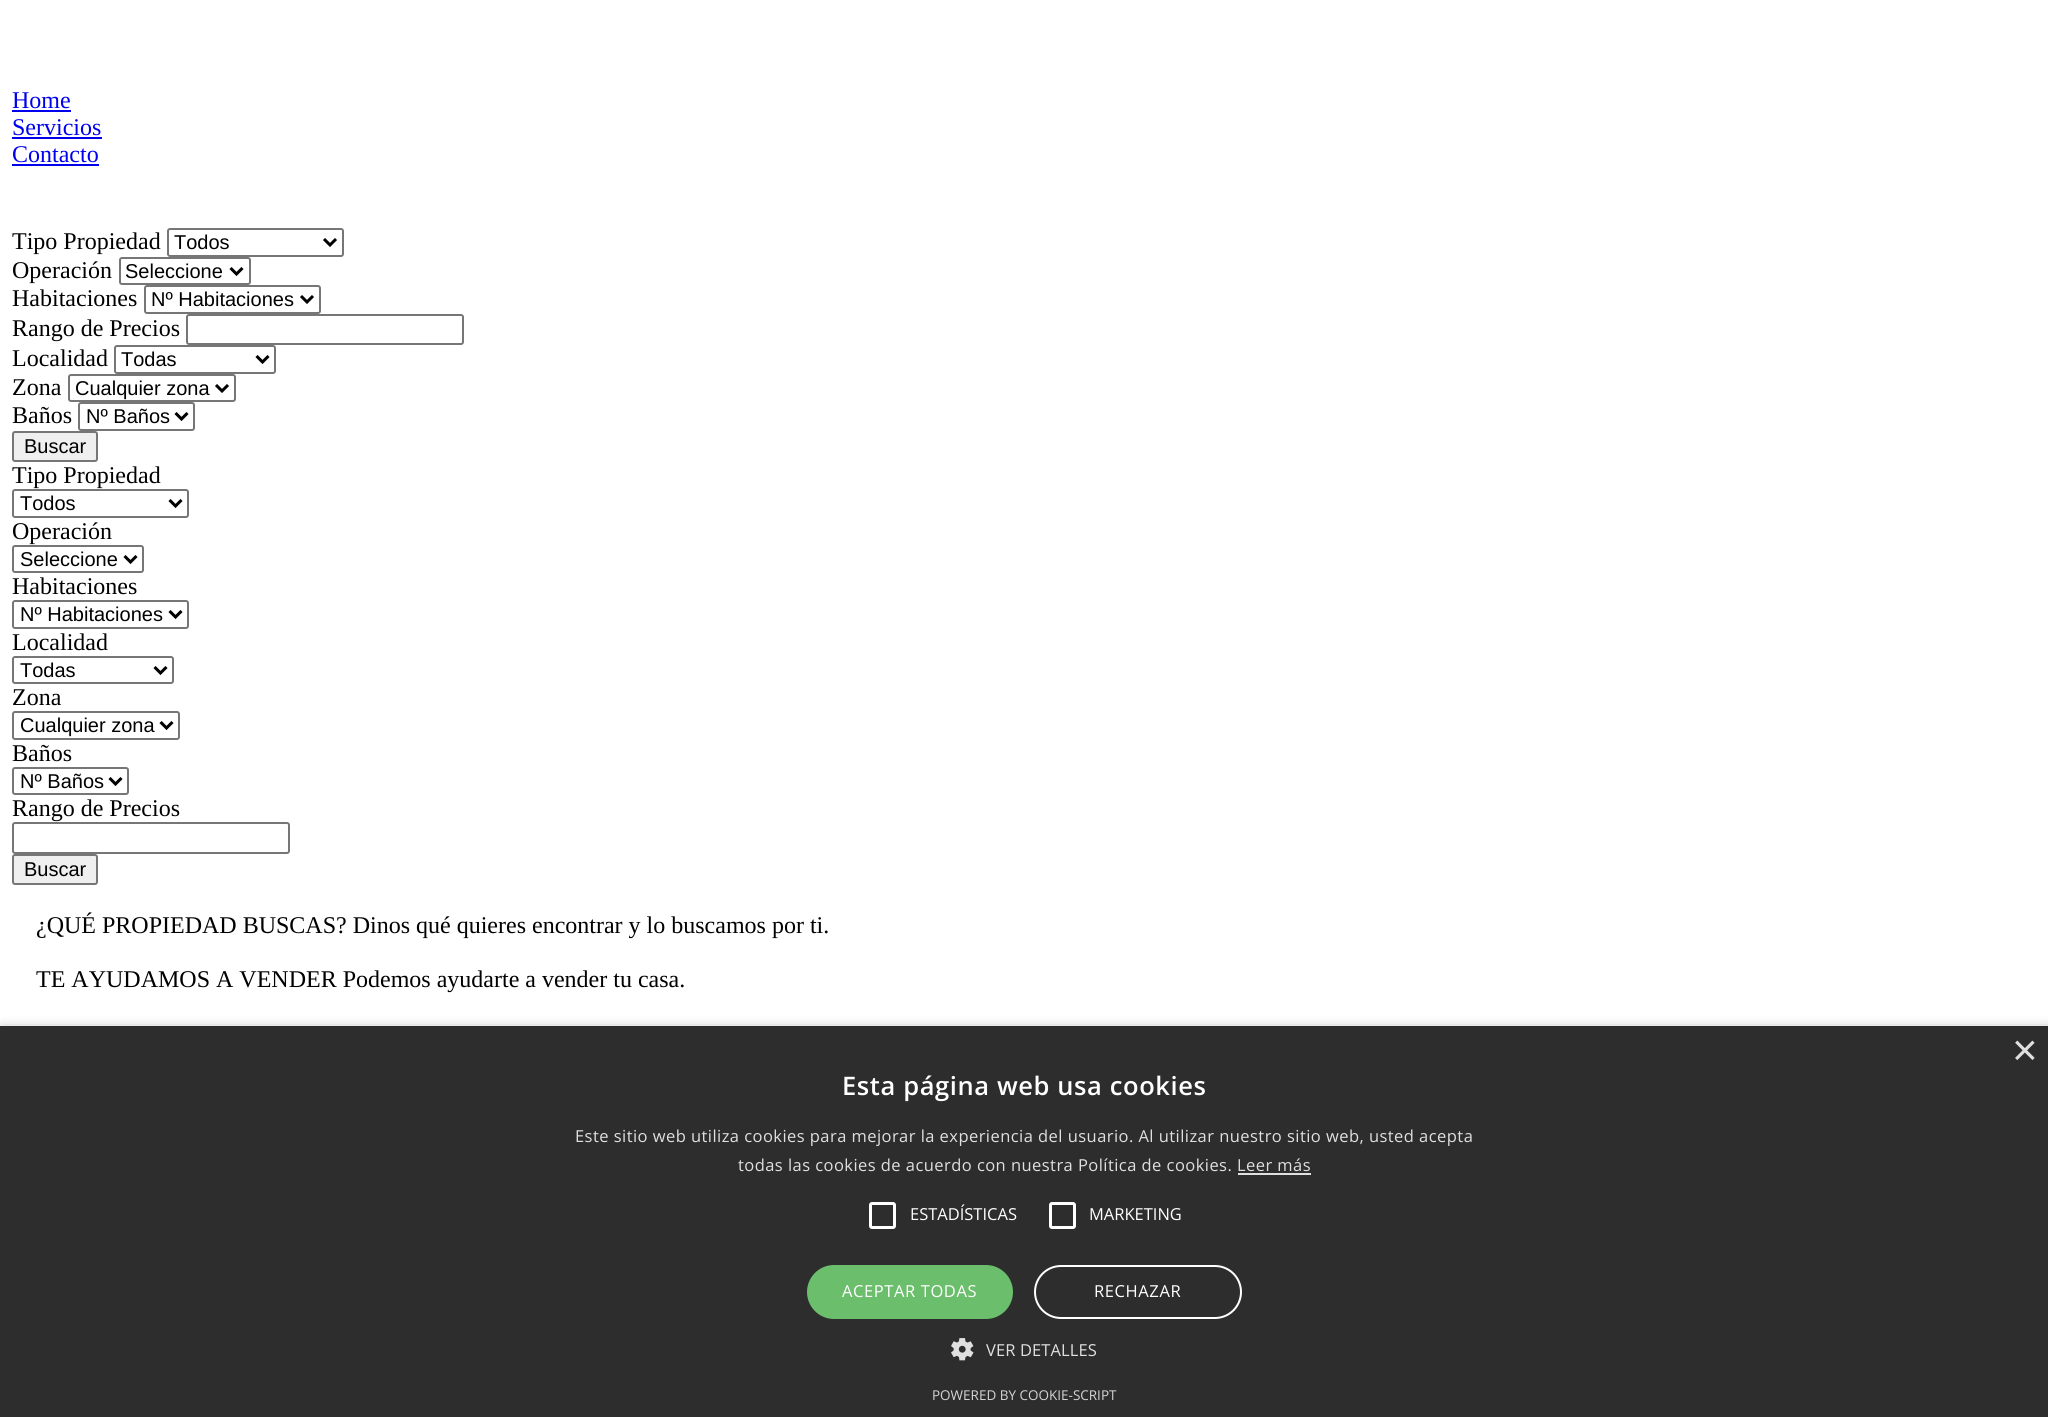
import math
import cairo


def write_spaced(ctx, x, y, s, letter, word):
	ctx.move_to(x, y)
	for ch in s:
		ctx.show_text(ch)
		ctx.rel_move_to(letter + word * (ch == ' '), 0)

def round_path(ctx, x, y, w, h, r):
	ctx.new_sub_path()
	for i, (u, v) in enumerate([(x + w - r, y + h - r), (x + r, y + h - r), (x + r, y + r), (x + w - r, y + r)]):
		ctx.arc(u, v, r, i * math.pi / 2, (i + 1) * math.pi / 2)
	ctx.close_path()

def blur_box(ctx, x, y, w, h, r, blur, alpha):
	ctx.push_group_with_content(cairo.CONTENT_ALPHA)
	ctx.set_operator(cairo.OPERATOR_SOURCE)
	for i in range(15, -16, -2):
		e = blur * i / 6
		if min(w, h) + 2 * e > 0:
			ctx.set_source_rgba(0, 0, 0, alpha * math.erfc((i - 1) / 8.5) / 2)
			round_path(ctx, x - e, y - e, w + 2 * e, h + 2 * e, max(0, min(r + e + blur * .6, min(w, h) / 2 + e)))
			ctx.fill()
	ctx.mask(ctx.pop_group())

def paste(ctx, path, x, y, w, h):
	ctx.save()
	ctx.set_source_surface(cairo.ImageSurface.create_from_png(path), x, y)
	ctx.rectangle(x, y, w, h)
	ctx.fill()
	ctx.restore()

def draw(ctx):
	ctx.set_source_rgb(1, 1, 1)
	ctx.paint()
	ctx.select_font_face('Liberation Serif')
	ctx.set_font_size(24)
	ctx.set_source_rgb(0, 0, 0.933)
	ctx.move_to(12, 108)
	ctx.show_text('Home')
	ctx.rectangle(12, 110, 59, 2)
	ctx.fill()
	ctx.move_to(12, 135)
	ctx.show_text('Servicios')
	ctx.rectangle(12, 137, 90, 2)
	ctx.fill()
	ctx.move_to(12, 162)
	ctx.show_text('Contacto')
	ctx.rectangle(12, 164, 87, 2)
	ctx.fill()
	ctx.set_source_rgb(0, 0, 0)
	ctx.move_to(12, 249)
	ctx.show_text('Tipo Propiedad')
	round_path(ctx, 168, 229, 175, 27, 2)
	ctx.set_source_rgb(0.463, 0.463, 0.463)
	ctx.stroke()
	ctx.new_path()
	ctx.move_to(324, 239)
	ctx.line_to(330, 245)
	ctx.line_to(336, 239)
	ctx.set_source_rgb(0, 0, 0)
	ctx.set_line_width(3)
	ctx.stroke()
	ctx.select_font_face('Liberation Sans')
	ctx.set_font_size(20)
	ctx.move_to(174, 249)
	ctx.show_text('Todos')
	ctx.select_font_face('Liberation Serif')
	ctx.set_font_size(24)
	ctx.move_to(12, 278)
	ctx.show_text('Operación')
	round_path(ctx, 120, 258, 130, 26, 2)
	ctx.set_source_rgb(0.463, 0.463, 0.463)
	ctx.set_line_width(2)
	ctx.stroke()
	ctx.new_path()
	ctx.move_to(230.5, 268)
	ctx.line_to(236.5, 274)
	ctx.line_to(242.5, 268)
	ctx.set_source_rgb(0, 0, 0)
	ctx.set_line_width(3)
	ctx.stroke()
	ctx.select_font_face('Liberation Sans')
	ctx.set_font_size(20)
	ctx.move_to(125, 278)
	ctx.show_text('Seleccione')
	ctx.select_font_face('Liberation Serif')
	ctx.set_font_size(24)
	ctx.move_to(12, 306)
	ctx.show_text('Habitaciones')
	round_path(ctx, 145, 286, 175, 27, 2)
	ctx.set_source_rgb(0.463, 0.463, 0.463)
	ctx.set_line_width(2)
	ctx.stroke()
	ctx.new_path()
	ctx.move_to(301, 296)
	ctx.line_to(307, 302)
	ctx.line_to(313, 296)
	ctx.set_source_rgb(0, 0, 0)
	ctx.set_line_width(3)
	ctx.stroke()
	ctx.select_font_face('Liberation Sans')
	ctx.set_font_size(20)
	ctx.move_to(151, 306)
	ctx.show_text('Nº Habitaciones')
	ctx.select_font_face('Liberation Serif')
	ctx.set_font_size(24)
	ctx.move_to(12, 336)
	ctx.show_text('Rango de Precios')
	round_path(ctx, 187, 315, 276, 29, 2)
	ctx.set_source_rgb(0.463, 0.463, 0.463)
	ctx.set_line_width(2)
	ctx.stroke()
	ctx.set_source_rgb(0, 0, 0)
	ctx.move_to(12, 366)
	ctx.show_text('Localidad')
	round_path(ctx, 115, 346, 160, 27, 2)
	ctx.set_source_rgb(0.463, 0.463, 0.463)
	ctx.stroke()
	ctx.new_path()
	ctx.move_to(256.5, 356)
	ctx.line_to(262.5, 362)
	ctx.line_to(268.5, 356)
	ctx.set_source_rgb(0, 0, 0)
	ctx.set_line_width(3)
	ctx.stroke()
	ctx.select_font_face('Liberation Sans')
	ctx.set_font_size(20)
	ctx.move_to(121, 366)
	ctx.show_text('Todas')
	ctx.select_font_face('Liberation Serif')
	ctx.set_font_size(24)
	ctx.move_to(12, 395)
	ctx.show_text('Zona')
	round_path(ctx, 69, 375, 166, 26, 2)
	ctx.set_source_rgb(0.463, 0.463, 0.463)
	ctx.set_line_width(2)
	ctx.stroke()
	ctx.new_path()
	ctx.move_to(216, 385)
	ctx.line_to(222, 391)
	ctx.line_to(228, 385)
	ctx.set_source_rgb(0, 0, 0)
	ctx.set_line_width(3)
	ctx.stroke()
	ctx.select_font_face('Liberation Sans')
	ctx.set_font_size(20)
	ctx.move_to(75, 395)
	ctx.show_text('Cualquier zona')
	ctx.select_font_face('Liberation Serif')
	ctx.set_font_size(24)
	ctx.move_to(12, 423)
	ctx.show_text('Baños')
	round_path(ctx, 79, 403, 115, 27, 2)
	ctx.set_source_rgb(0.463, 0.463, 0.463)
	ctx.set_line_width(2)
	ctx.stroke()
	ctx.new_path()
	ctx.move_to(175.5, 413)
	ctx.line_to(181.5, 419)
	ctx.line_to(187.5, 413)
	ctx.set_source_rgb(0, 0, 0)
	ctx.set_line_width(3)
	ctx.stroke()
	ctx.select_font_face('Liberation Sans')
	ctx.set_font_size(20)
	ctx.move_to(86, 423)
	ctx.show_text('Nº Baños')
	ctx.set_source_rgb(0.937, 0.937, 0.937)
	round_path(ctx, 13, 432, 84, 29, 2)
	ctx.fill_preserve()
	ctx.set_source_rgb(0.463, 0.463, 0.463)
	ctx.set_line_width(2)
	ctx.stroke()
	ctx.set_source_rgb(0, 0, 0)
	ctx.move_to(24, 453)
	ctx.show_text('Buscar')
	ctx.select_font_face('Liberation Serif')
	ctx.set_font_size(24)
	ctx.move_to(12, 483)
	ctx.show_text('Tipo Propiedad')
	round_path(ctx, 13, 490, 175, 27, 2)
	ctx.set_source_rgb(0.463, 0.463, 0.463)
	ctx.stroke()
	ctx.new_path()
	ctx.move_to(169.5, 500)
	ctx.line_to(175.5, 506)
	ctx.line_to(181.5, 500)
	ctx.set_source_rgb(0, 0, 0)
	ctx.set_line_width(3)
	ctx.stroke()
	ctx.select_font_face('Liberation Sans')
	ctx.set_font_size(20)
	ctx.move_to(20, 510)
	ctx.show_text('Todos')
	ctx.select_font_face('Liberation Serif')
	ctx.set_font_size(24)
	ctx.move_to(12, 539)
	ctx.show_text('Operación')
	round_path(ctx, 13, 546, 130, 26, 2)
	ctx.set_source_rgb(0.463, 0.463, 0.463)
	ctx.set_line_width(2)
	ctx.stroke()
	ctx.new_path()
	ctx.move_to(124.5, 556)
	ctx.line_to(130.5, 562)
	ctx.line_to(136.5, 556)
	ctx.set_source_rgb(0, 0, 0)
	ctx.set_line_width(3)
	ctx.stroke()
	ctx.select_font_face('Liberation Sans')
	ctx.set_font_size(20)
	ctx.move_to(20, 566)
	ctx.show_text('Seleccione')
	ctx.select_font_face('Liberation Serif')
	ctx.set_font_size(24)
	ctx.move_to(12, 594)
	ctx.show_text('Habitaciones')
	round_path(ctx, 13, 601, 175, 27, 2)
	ctx.set_source_rgb(0.463, 0.463, 0.463)
	ctx.set_line_width(2)
	ctx.stroke()
	ctx.new_path()
	ctx.move_to(169.5, 611)
	ctx.line_to(175.5, 617)
	ctx.line_to(181.5, 611)
	ctx.set_source_rgb(0, 0, 0)
	ctx.set_line_width(3)
	ctx.stroke()
	ctx.select_font_face('Liberation Sans')
	ctx.set_font_size(20)
	ctx.move_to(20, 621)
	ctx.show_text('Nº Habitaciones')
	ctx.select_font_face('Liberation Serif')
	ctx.set_font_size(24)
	ctx.move_to(12, 650)
	ctx.show_text('Localidad')
	round_path(ctx, 13, 657, 160, 26, 2)
	ctx.set_source_rgb(0.463, 0.463, 0.463)
	ctx.set_line_width(2)
	ctx.stroke()
	ctx.new_path()
	ctx.move_to(154.5, 667)
	ctx.line_to(160.5, 673)
	ctx.line_to(166.5, 667)
	ctx.set_source_rgb(0, 0, 0)
	ctx.set_line_width(3)
	ctx.stroke()
	ctx.select_font_face('Liberation Sans')
	ctx.set_font_size(20)
	ctx.move_to(20, 677)
	ctx.show_text('Todas')
	ctx.select_font_face('Liberation Serif')
	ctx.set_font_size(24)
	ctx.move_to(12, 705)
	ctx.show_text('Zona')
	round_path(ctx, 13, 712, 166, 27, 2)
	ctx.set_source_rgb(0.463, 0.463, 0.463)
	ctx.set_line_width(2)
	ctx.stroke()
	ctx.new_path()
	ctx.move_to(160.5, 722)
	ctx.line_to(166.5, 728)
	ctx.line_to(172.5, 722)
	ctx.set_source_rgb(0, 0, 0)
	ctx.set_line_width(3)
	ctx.stroke()
	ctx.select_font_face('Liberation Sans')
	ctx.set_font_size(20)
	ctx.move_to(20, 732)
	ctx.show_text('Cualquier zona')
	ctx.select_font_face('Liberation Serif')
	ctx.set_font_size(24)
	ctx.move_to(12, 761)
	ctx.show_text('Baños')
	round_path(ctx, 13, 768, 115, 26, 2)
	ctx.set_source_rgb(0.463, 0.463, 0.463)
	ctx.set_line_width(2)
	ctx.stroke()
	ctx.new_path()
	ctx.move_to(109.5, 778)
	ctx.line_to(115.5, 784)
	ctx.line_to(121.5, 778)
	ctx.set_source_rgb(0, 0, 0)
	ctx.set_line_width(3)
	ctx.stroke()
	ctx.select_font_face('Liberation Sans')
	ctx.set_font_size(20)
	ctx.move_to(20, 788)
	ctx.show_text('Nº Baños')
	ctx.select_font_face('Liberation Serif')
	ctx.set_font_size(24)
	ctx.move_to(12, 816)
	ctx.show_text('Rango de Precios')
	round_path(ctx, 13, 823, 276, 30, 2)
	ctx.set_source_rgb(0.463, 0.463, 0.463)
	ctx.set_line_width(2)
	ctx.stroke()
	ctx.set_source_rgb(0.937, 0.937, 0.937)
	round_path(ctx, 13, 855, 84, 29, 2)
	ctx.fill_preserve()
	ctx.set_source_rgb(0.463, 0.463, 0.463)
	ctx.stroke()
	ctx.select_font_face('Liberation Sans')
	ctx.set_font_size(20)
	ctx.set_source_rgb(0, 0, 0)
	ctx.move_to(24, 876)
	ctx.show_text('Buscar')
	ctx.select_font_face('Liberation Serif')
	ctx.set_font_size(24)
	ctx.move_to(36, 933)
	ctx.show_text('¿QUÉ PROPIEDAD BUSCAS? Dinos qué quieres encontrar y lo buscamos por ti.')
	ctx.move_to(36, 987)
	ctx.show_text('TE AYUDAMOS A VENDER Podemos ayudarte a vender tu casa.')
	ctx.set_source_rgb(0, 0, 0)
	blur_box(ctx, 2, 1029, 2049, 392, 0, 6, 0.35)
	ctx.set_source_rgb(0.176, 0.176, 0.176)
	ctx.rectangle(0, 1026, 2048, 391)
	ctx.fill()
	ctx.select_font_face('Liberation Sans')
	ctx.set_font_size(44)
	ctx.set_source_rgb(0.878, 0.878, 0.878)
	ctx.move_to(2012, 1065)
	ctx.show_text('×')
	ctx.select_font_face('Open Sans SemiBold')
	ctx.set_font_size(25.5)
	ctx.set_source_rgb(1, 1, 1)
	write_spaced(ctx, 842, 1095, 'Esta página web usa cookies', 0.6, 0)
	ctx.select_font_face('Open Sans')
	ctx.set_font_size(16.5)
	ctx.set_source_rgb(0.878, 0.878, 0.878)
	write_spaced(ctx, 575, 1142, 'Este sitio web utiliza cookies para mejorar la experiencia del usuario. Al utilizar nuestro sitio web, usted acepta', 0.45, 0)
	write_spaced(ctx, 738, 1171, 'todas las cookies de acuerdo con nuestra Política de cookies. Leer más', 0.45, 0)
	ctx.rectangle(1238, 1173, 73, 2)
	ctx.fill()
	round_path(ctx, 870.5, 1203.5, 24, 24, 1.5)
	ctx.set_source_rgb(1, 1, 1)
	ctx.set_line_width(3)
	ctx.stroke()
	ctx.move_to(910, 1220)
	ctx.show_text('ESTADÍSTICAS')
	round_path(ctx, 1050.5, 1203.5, 24, 24, 1.5)
	ctx.stroke()
	ctx.move_to(1089, 1220)
	ctx.show_text('MARKETING')
	ctx.set_source_rgb(0.42, 0.745, 0.42)
	round_path(ctx, 807, 1265, 206, 54, 27)
	ctx.fill()
	ctx.set_source_rgb(1, 1, 1)
	write_spaced(ctx, 842, 1297, 'ACEPTAR TODAS', 0.6, 0)
	round_path(ctx, 1035, 1266, 206, 52, 26)
	ctx.set_line_width(2)
	ctx.stroke()
	write_spaced(ctx, 1094, 1297, 'RECHAZAR', 0.6, 0)
	paste(ctx, 'media/1.png', 951, 1338, 23, 23)
	ctx.set_source_rgb(0.878, 0.878, 0.878)
	write_spaced(ctx, 986, 1356, 'VER DETALLES', 0.1, 0)
	ctx.set_font_size(13.5)
	ctx.set_source_rgb(0.835, 0.835, 0.835)
	ctx.move_to(932, 1400)
	ctx.show_text('POWERED BY COOKIE-SCRIPT')


surface = cairo.ImageSurface(cairo.FORMAT_RGB24, 2048, 1417)
ctx = cairo.Context(surface)
options = cairo.FontOptions()
options.set_hint_metrics(cairo.HINT_METRICS_OFF)
options.set_hint_style(cairo.HINT_STYLE_NONE)
ctx.set_font_options(options)
ctx.set_miter_limit(4)
draw(ctx)
surface.write_to_png('image.png')
